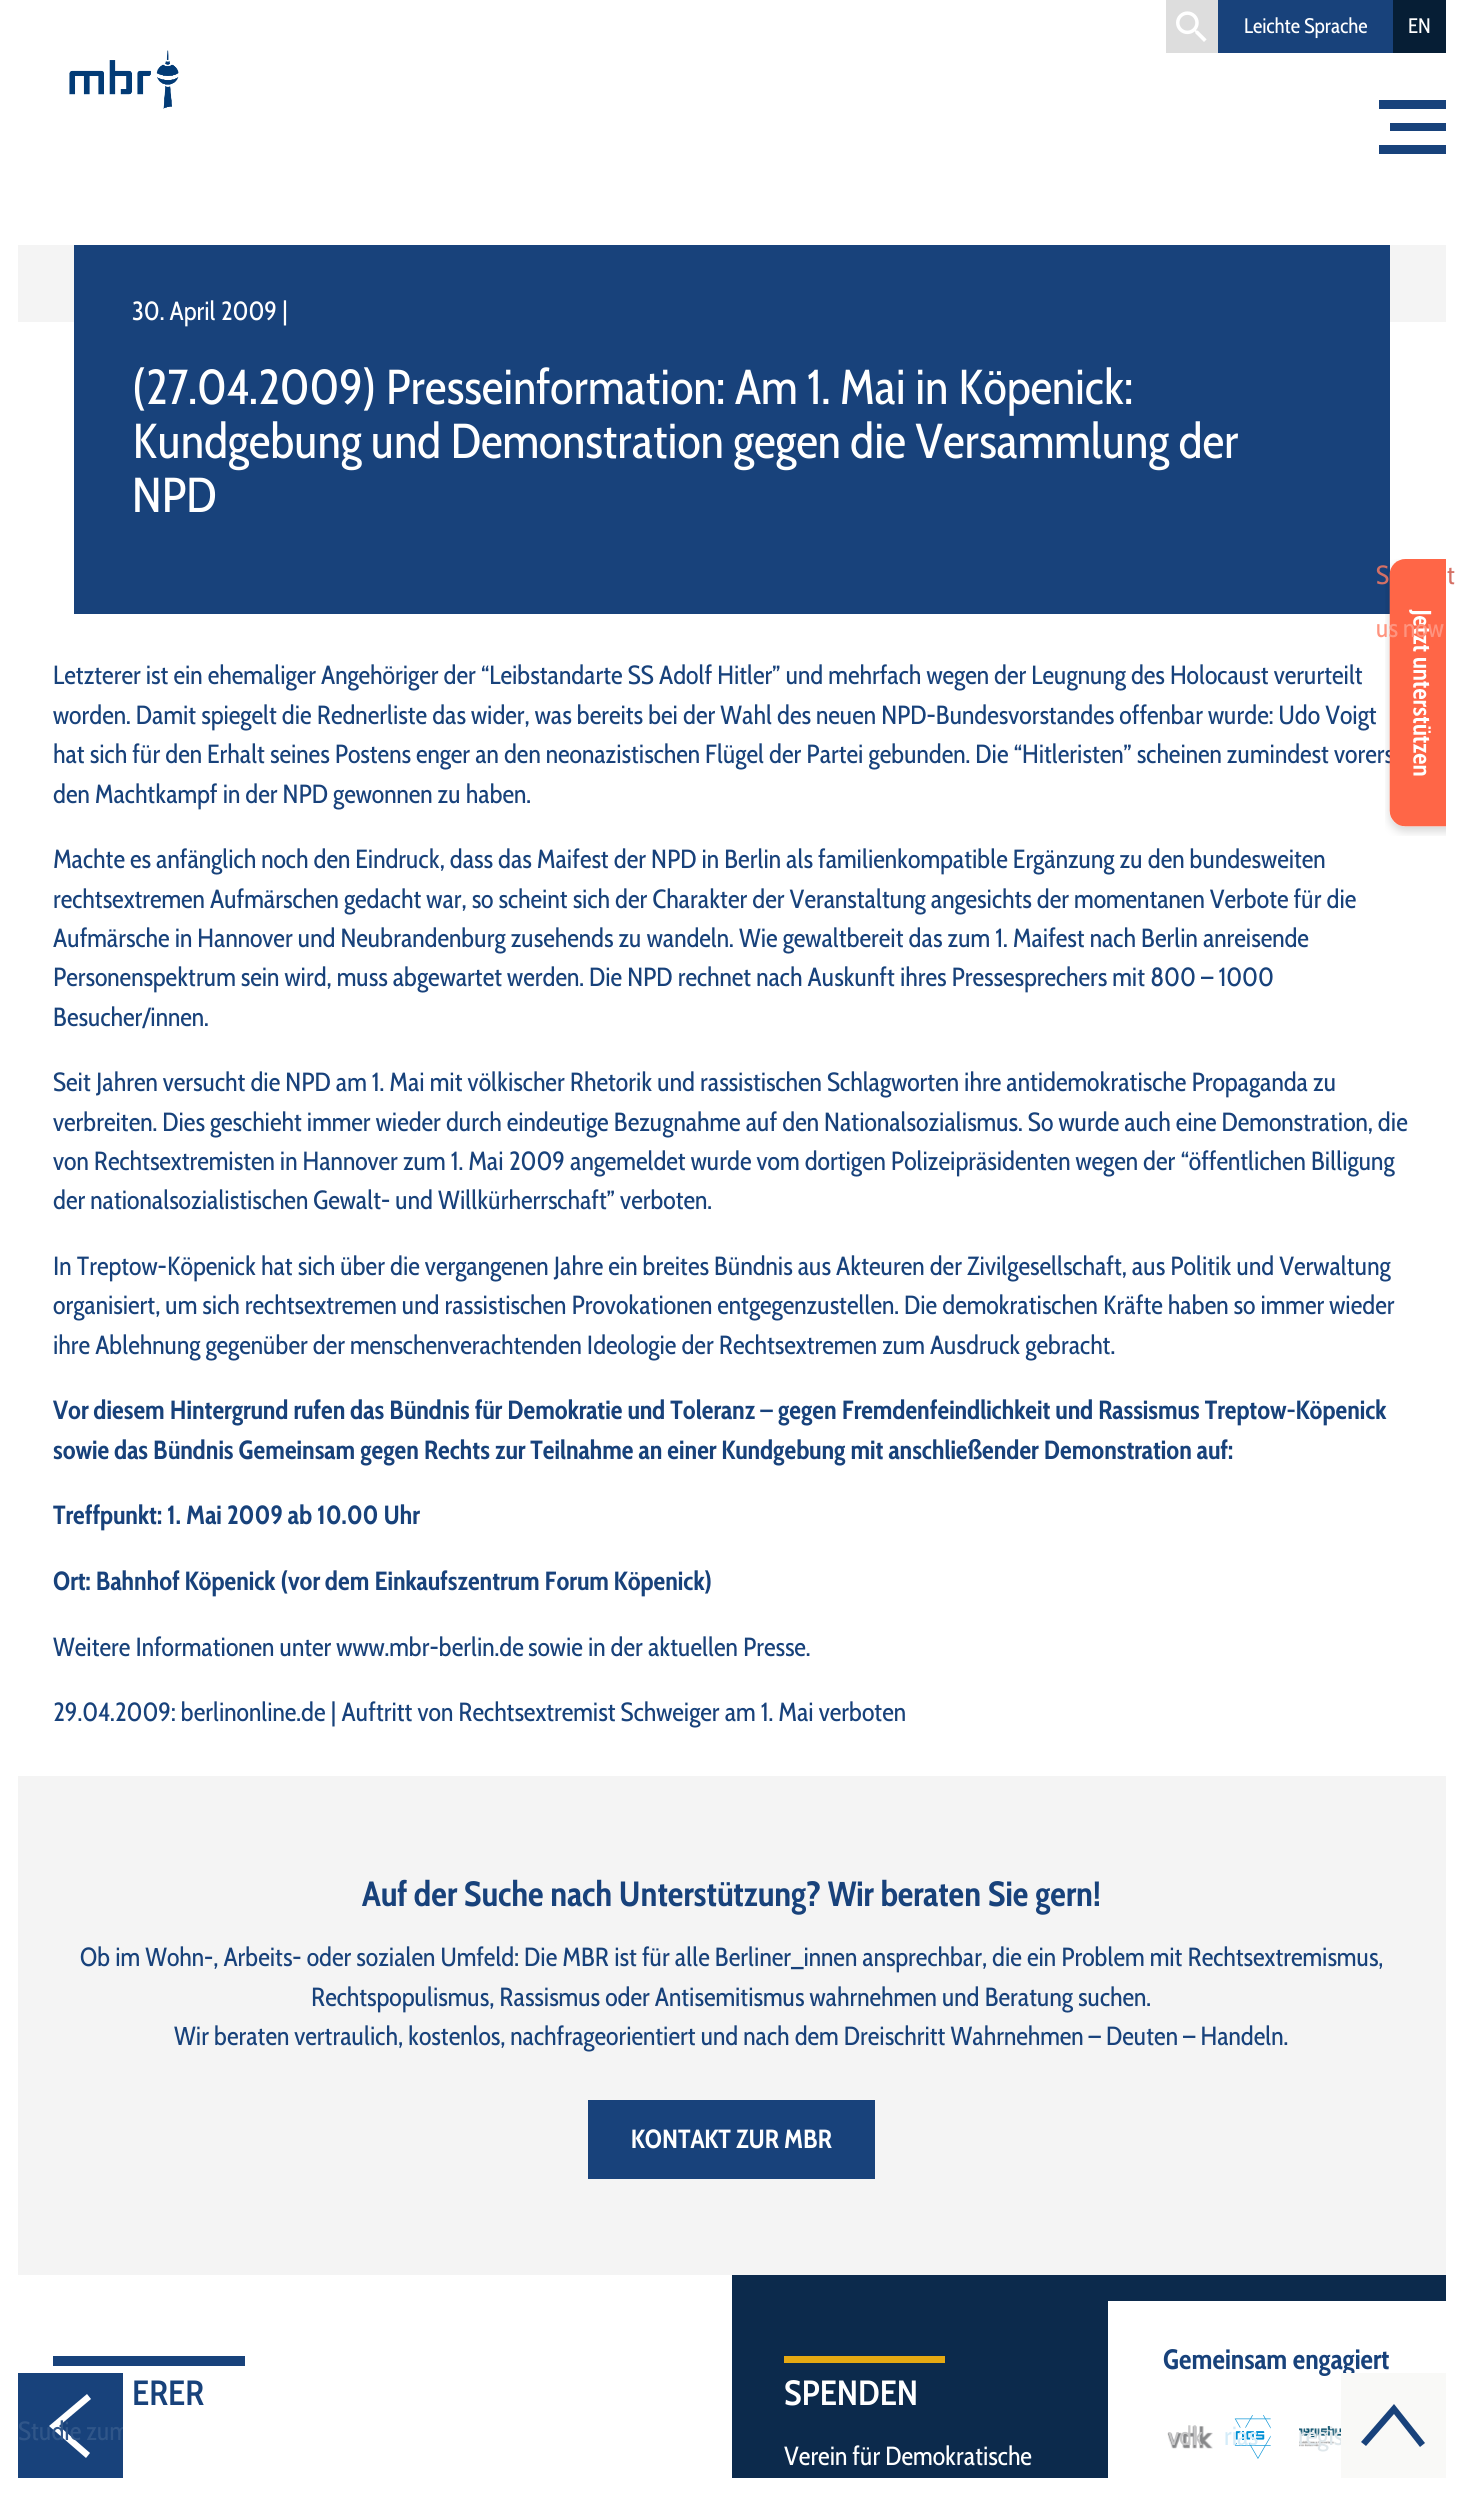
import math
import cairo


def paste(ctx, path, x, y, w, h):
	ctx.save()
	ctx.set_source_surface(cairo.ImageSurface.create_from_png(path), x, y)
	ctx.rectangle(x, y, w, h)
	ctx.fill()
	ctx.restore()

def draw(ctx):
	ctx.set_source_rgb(0.957, 0.957, 0.957)
	ctx.paint()
	ctx.set_source_rgb(1, 1, 1)
	ctx.rectangle(0, 0, 1462, 245)
	ctx.fill()
	ctx.set_source_rgb(0.867, 0.867, 0.867)
	ctx.rectangle(1166, 0, 52, 53)
	ctx.fill()
	paste(ctx, 'media/1.png', 1176, 11, 31, 31)
	ctx.set_source_rgb(0.094, 0.259, 0.482)
	ctx.rectangle(1218, 0, 175, 53)
	ctx.fill()
	ctx.select_font_face('Cabin Condensed')
	ctx.set_font_size(21)
	ctx.set_source_rgb(1, 1, 1)
	ctx.move_to(1244, 33)
	ctx.show_text('Leichte Sprache')
	ctx.set_source_rgb(0.024, 0.118, 0.208)
	ctx.rectangle(1393, 0, 53, 53)
	ctx.fill()
	ctx.set_source_rgb(1, 1, 1)
	ctx.move_to(1408, 33)
	ctx.show_text('EN')
	paste(ctx, 'media/2.png', 69, 50, 110, 59)
	ctx.set_source_rgb(0.047, 0.165, 0.298)
	ctx.rectangle(732, 2275, 714, 203)
	ctx.fill()
	ctx.set_source_rgb(1, 1, 1)
	ctx.rectangle(1108, 2301, 338, 177)
	ctx.fill()
	ctx.select_font_face('Cabin Condensed', cairo.FONT_SLANT_NORMAL, cairo.FONT_WEIGHT_BOLD)
	ctx.set_font_size(28)
	ctx.set_source_rgb(0.094, 0.259, 0.482)
	ctx.move_to(1163, 2369)
	ctx.show_text('Gemeinsam engagiert')
	paste(ctx, 'media/3.png', 1167, 2426, 46, 23)
	ctx.select_font_face('Cabin Condensed')
	ctx.set_font_size(26.25)
	ctx.set_source_rgb(0.78, 0.78, 0.784)
	ctx.move_to(1168, 2445)
	ctx.show_text('vdk')
	paste(ctx, 'media/4.png', 1234, 2415, 37, 44)
	ctx.set_source_rgb(0.831, 0.925, 0.973)
	ctx.move_to(1224, 2445)
	ctx.show_text('rias')
	paste(ctx, 'media/5.png', 1299, 2426, 42, 21)
	ctx.set_source_rgb(0.875, 0.906, 0.918)
	ctx.move_to(1298, 2445)
	ctx.show_text('regis')
	ctx.set_source_rgb(1, 1, 1)
	ctx.rectangle(18, 322, 1428, 1454)
	ctx.fill()
	ctx.set_source_rgb(0.094, 0.259, 0.482)
	ctx.rectangle(74, 245, 1316, 369)
	ctx.fill()
	ctx.set_source_rgb(1, 1, 1)
	ctx.move_to(132, 320)
	ctx.show_text('30. April 2009 |')
	ctx.set_font_size(49)
	for x, y, s in [
		(132, 404, '(27.04.2009) Presseinformation: Am 1. Mai in Köpenick:'),
		(132, 458, 'Kundgebung und Demonstration gegen die Versammlung der'),
		(132, 512, 'NPD'),
	]:
		ctx.move_to(x, y)
		ctx.show_text(s)
	ctx.set_font_size(26.25)
	ctx.set_source_rgb(0.094, 0.259, 0.482)
	for x, y, s in [
		(53, 684, 'Letzterer ist ein ehemaliger Angehöriger der “Leibstandarte SS Adolf Hitler” und mehrfach wegen der Leugnung des Holocaust verurteilt'),
		(53, 724, 'worden. Damit spiegelt die Rednerliste das wider, was bereits bei der Wahl des neuen NPD-Bundesvorstandes offenbar wurde: Udo Voigt'),
		(53, 763, 'hat sich für den Erhalt seines Postens enger an den neonazistischen Flügel der Partei gebunden. Die “Hitleristen” scheinen zumindest vorers'),
		(53, 803, 'den Machtkampf in der NPD gewonnen zu haben.'),
		(53, 868, 'Machte es anfänglich noch den Eindruck, dass das Maifest der NPD in Berlin als familienkompatible Ergänzung zu den bundesweiten'),
		(53, 908, 'rechtsextremen Aufmärschen gedacht war, so scheint sich der Charakter der Veranstaltung angesichts der momentanen Verbote für die'),
		(53, 947, 'Aufmärsche in Hannover und Neubrandenburg zusehends zu wandeln. Wie gewaltbereit das zum 1. Maifest nach Berlin anreisende'),
		(53, 986, 'Personenspektrum sein wird, muss abgewartet werden. Die NPD rechnet nach Auskunft ihres Pressesprechers mit 800 – 1000'),
		(53, 1026, 'Besucher/innen.'),
		(53, 1091, 'Seit Jahren versucht die NPD am 1. Mai mit völkischer Rhetorik und rassistischen Schlagworten ihre antidemokratische Propaganda zu'),
		(53, 1131, 'verbreiten. Dies geschieht immer wieder durch eindeutige Bezugnahme auf den Nationalsozialismus. So wurde auch eine Demonstration, die'),
		(53, 1170, 'von Rechtsextremisten in Hannover zum 1. Mai 2009 angemeldet wurde vom dortigen Polizeipräsidenten wegen der “öffentlichen Billigung'),
		(53, 1209, 'der nationalsozialistischen Gewalt- und Willkürherrschaft” verboten.'),
		(53, 1275, 'In Treptow-Köpenick hat sich über die vergangenen Jahre ein breites Bündnis aus Akteuren der Zivilgesellschaft, aus Politik und Verwaltung'),
		(53, 1314, 'organisiert, um sich rechtsextremen und rassistischen Provokationen entgegenzustellen. Die demokratischen Kräfte haben so immer wieder'),
		(53, 1354, 'ihre Ablehnung gegenüber der menschenverachtenden Ideologie der Rechtsextremen zum Ausdruck gebracht.'),
	]:
		ctx.move_to(x, y)
		ctx.show_text(s)
	ctx.select_font_face('Cabin Condensed', cairo.FONT_SLANT_NORMAL, cairo.FONT_WEIGHT_BOLD)
	for x, y, s in [
		(53, 1419, 'Vor diesem Hintergrund rufen das Bündnis für Demokratie und Toleranz – gegen Fremdenfeindlichkeit und Rassismus Treptow-Köpenick'),
		(53, 1459, 'sowie das Bündnis Gemeinsam gegen Rechts zur Teilnahme an einer Kundgebung mit anschließender Demonstration auf:'),
		(53, 1524, 'Treffpunkt: 1. Mai 2009 ab 10.00 Uhr'),
		(53, 1590, 'Ort: Bahnhof Köpenick (vor dem Einkaufszentrum Forum Köpenick)'),
	]:
		ctx.move_to(x, y)
		ctx.show_text(s)
	ctx.select_font_face('Cabin Condensed')
	for x, y, s in [
		(53, 1656, 'Weitere Informationen unter www.mbr-berlin.de'),
		(528, 1656, 'sowie in der aktuellen Presse.'),
		(53, 1721, '29.04.2009: berlinonline.de | Auftritt von Rechtsextremist Schweiger am 1. Mai verboten'),
	]:
		ctx.move_to(x, y)
		ctx.show_text(s)
	ctx.set_source_rgb(1, 1, 1)
	ctx.rectangle(18, 2275, 714, 203)
	ctx.fill()
	ctx.set_source_rgb(0.094, 0.259, 0.482)
	ctx.rectangle(18, 2373, 105, 105)
	ctx.fill()
	ctx.set_source_rgb(1, 1, 1)
	ctx.new_path()
	ctx.move_to(49, 2426)
	ctx.line_to(86, 2458)
	ctx.line_to(90, 2453)
	ctx.line_to(59, 2426)
	ctx.line_to(91, 2399)
	ctx.line_to(87, 2394)
	ctx.line_to(49, 2426)
	ctx.fill()
	ctx.save()
	ctx.rectangle(18, 2373, 105, 105)
	ctx.clip()
	ctx.set_source_rgb(0.188, 0.337, 0.537)
	ctx.move_to(18, 2440)
	ctx.show_text('Studie zum')
	ctx.restore()
	ctx.select_font_face('Cabin Condensed', cairo.FONT_SLANT_NORMAL, cairo.FONT_WEIGHT_BOLD)
	ctx.set_font_size(35)
	ctx.set_source_rgb(0.094, 0.259, 0.482)
	ctx.move_to(362, 1906)
	ctx.show_text('Auf der Suche nach Unterstützung? Wir beraten Sie gern!')
	ctx.select_font_face('Cabin Condensed')
	ctx.set_font_size(26.25)
	for x, y, s in [
		(80, 1966, 'Ob im Wohn-, Arbeits- oder sozialen Umfeld: Die MBR ist für alle Berliner_innen ansprechbar, die ein Problem mit Rechtsextremismus,'),
		(311, 2006, 'Rechtspopulismus, Rassismus oder Antisemitismus wahrnehmen und Beratung suchen.'),
		(174, 2045, 'Wir beraten vertraulich, kostenlos, nachfrageorientiert und nach dem Dreischritt Wahrnehmen – Deuten – Handeln.'),
	]:
		ctx.move_to(x, y)
		ctx.show_text(s)
	ctx.rectangle(588, 2100, 287, 79)
	ctx.fill()
	ctx.select_font_face('Cabin Condensed', cairo.FONT_SLANT_NORMAL, cairo.FONT_WEIGHT_BOLD)
	ctx.set_source_rgb(1, 1, 1)
	ctx.move_to(631, 2148)
	ctx.show_text('KONTAKT ZUR MBR')
	ctx.set_source_rgb(0.094, 0.259, 0.482)
	ctx.rectangle(53, 2356, 192, 10)
	ctx.fill()
	ctx.select_font_face('Cabin Condensed SemiBold')
	ctx.set_font_size(35)
	ctx.move_to(132, 2405)
	ctx.show_text('ERER')
	ctx.set_source_rgb(0.902, 0.663, 0.078)
	ctx.rectangle(784, 2356, 161, 7)
	ctx.fill()
	ctx.set_source_rgb(1, 1, 1)
	ctx.move_to(784, 2405)
	ctx.show_text('SPENDEN')
	ctx.select_font_face('Cabin Condensed')
	ctx.set_font_size(26.25)
	ctx.move_to(784, 2465)
	ctx.show_text('Verein für Demokratische')
	ctx.set_source_rgb(0.976, 0.973, 0.965)
	ctx.rectangle(1341, 2373, 105, 105)
	ctx.fill()
	ctx.set_source_rgb(0.094, 0.259, 0.482)
	ctx.new_path()
	ctx.move_to(1394, 2404)
	ctx.line_to(1361, 2442)
	ctx.line_to(1366, 2446)
	ctx.line_to(1394, 2414)
	ctx.line_to(1420, 2447)
	ctx.line_to(1425, 2443)
	ctx.line_to(1394, 2404)
	ctx.fill()
	ctx.rectangle(1390, 123, 56, 8)
	ctx.rectangle(1379, 100, 67, 9)
	ctx.rectangle(1379, 145, 67, 9)
	ctx.fill()
	ctx.set_source_rgb(1, 1, 1)
	ctx.rectangle(0, 245, 18, 2233)
	ctx.rectangle(1446, 245, 16, 2233)
	ctx.fill()
	paste(ctx, 'media/6.png', 1385, 559, 61, 277)
	ctx.set_source_rgb(0.831, 0.439, 0.396)
	ctx.move_to(1376, 584)
	ctx.show_text('S')
	ctx.move_to(1447, 584)
	ctx.show_text('t')
	ctx.set_source_rgb(0.996, 0.58, 0.498)
	ctx.move_to(1376, 637)
	ctx.show_text('us now')
	ctx.set_source_rgb(1, 1, 1)
	ctx.rectangle(0, 2478, 1462, 17)
	ctx.fill()


surface = cairo.ImageSurface(cairo.FORMAT_RGB24, 1462, 2495)
ctx = cairo.Context(surface)
options = cairo.FontOptions()
options.set_hint_metrics(cairo.HINT_METRICS_OFF)
options.set_hint_style(cairo.HINT_STYLE_NONE)
ctx.set_font_options(options)
ctx.set_miter_limit(4)
draw(ctx)
surface.write_to_png('image.png')
